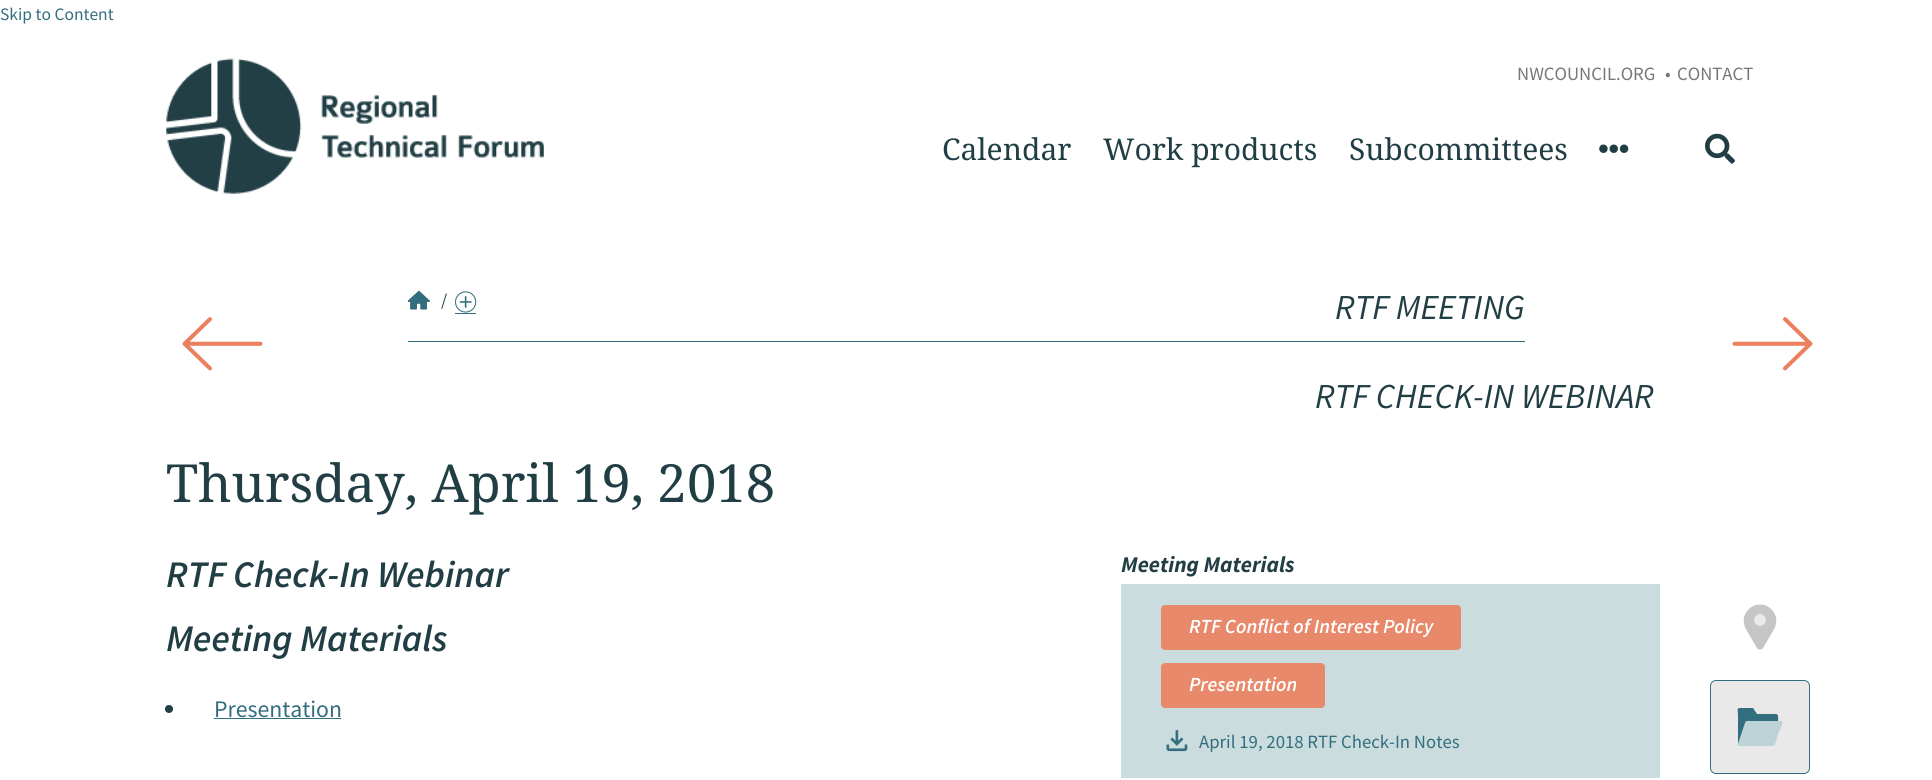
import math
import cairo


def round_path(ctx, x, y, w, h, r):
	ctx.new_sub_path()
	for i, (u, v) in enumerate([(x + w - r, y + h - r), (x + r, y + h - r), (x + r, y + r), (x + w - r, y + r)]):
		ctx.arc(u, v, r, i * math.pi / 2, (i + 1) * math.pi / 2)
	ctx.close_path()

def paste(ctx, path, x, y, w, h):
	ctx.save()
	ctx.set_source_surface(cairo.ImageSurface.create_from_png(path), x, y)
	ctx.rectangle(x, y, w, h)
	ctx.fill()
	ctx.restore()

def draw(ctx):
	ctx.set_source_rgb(1, 1, 1)
	ctx.paint()
	ctx.select_font_face('Source Sans Pro')
	ctx.set_font_size(17.5)
	ctx.set_source_rgb(0.2, 0.431, 0.494)
	ctx.move_to(0, 20)
	ctx.show_text('Skip to Content')
	paste(ctx, 'media/1.png', 166, 58, 378, 136)
	ctx.set_font_size(18.75)
	ctx.set_source_rgb(0.467, 0.467, 0.467)
	for x, y, s in [
		(1517, 80, 'NWCOUNCIL.ORG'),
		(1665, 80, '•'),
		(1677, 80, 'CONTACT'),
	]:
		ctx.move_to(x, y)
		ctx.show_text(s)
	ctx.select_font_face('Droid Serif')
	ctx.set_font_size(30)
	ctx.set_source_rgb(0.129, 0.243, 0.267)
	for x, y, s in [
		(942, 160, 'Calendar'),
		(1103, 160, 'Work products'),
		(1349, 160, 'Subcommittees'),
	]:
		ctx.move_to(x, y)
		ctx.show_text(s)
	paste(ctx, 'media/2.png', 1599, 144, 30, 9)
	paste(ctx, 'media/3.png', 1705, 133, 30, 31)
	paste(ctx, 'media/4.png', 408, 290, 22, 20)
	ctx.select_font_face('Source Sans Pro')
	ctx.set_font_size(17.5)
	ctx.move_to(441, 306)
	ctx.show_text('/')
	paste(ctx, 'media/5.png', 455, 291, 22, 22)
	ctx.set_source_rgb(0.2, 0.431, 0.494)
	ctx.rectangle(455, 313, 21, 1)
	ctx.fill()
	ctx.select_font_face('Source Sans Pro', cairo.FONT_SLANT_ITALIC)
	ctx.set_font_size(35)
	ctx.set_source_rgb(0.129, 0.243, 0.267)
	ctx.move_to(1335, 319)
	ctx.show_text('RTF MEETING')
	ctx.set_source_rgb(0.2, 0.431, 0.494)
	ctx.rectangle(408, 341, 1117, 1)
	ctx.fill()
	paste(ctx, 'media/6.png', 182, 317, 81, 54)
	paste(ctx, 'media/7.png', 1732, 317, 81, 54)
	ctx.set_source_rgb(0.129, 0.243, 0.267)
	ctx.move_to(1315, 408)
	ctx.show_text('RTF CHECK-IN WEBINAR')
	ctx.select_font_face('Droid Serif')
	ctx.set_font_size(52.5)
	ctx.move_to(166, 502)
	ctx.show_text('Thursday, April 19, 2018')
	ctx.select_font_face('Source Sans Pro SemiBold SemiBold', cairo.FONT_SLANT_ITALIC)
	ctx.set_font_size(37.5)
	ctx.move_to(166, 587)
	ctx.show_text('RTF Check-In Webinar')
	ctx.move_to(166, 651)
	ctx.show_text('Meeting Materials')
	ctx.new_path()
	ctx.arc(169, 709, 4, 0, 2 * math.pi)
	ctx.fill()
	ctx.select_font_face('Source Sans Pro')
	ctx.set_font_size(23.75)
	ctx.set_source_rgb(0.2, 0.431, 0.494)
	ctx.move_to(214, 717)
	ctx.show_text('Presentation')
	ctx.rectangle(214, 718, 127, 1)
	ctx.fill()
	ctx.select_font_face('Source Sans Pro', cairo.FONT_SLANT_ITALIC, cairo.FONT_WEIGHT_BOLD)
	ctx.set_font_size(22.5)
	ctx.set_source_rgb(0.129, 0.243, 0.267)
	ctx.move_to(1121, 572)
	ctx.show_text('Meeting Materials')
	ctx.set_source_rgb(0.792, 0.863, 0.871)
	ctx.rectangle(1121, 584, 539, 194)
	ctx.fill()
	ctx.set_source_rgb(0.91, 0.537, 0.42)
	round_path(ctx, 1162.5, 606.5, 297, 42, 2.5)
	ctx.fill_preserve()
	ctx.set_line_width(3)
	ctx.stroke()
	ctx.select_font_face('Source Sans Pro SemiBold SemiBold', cairo.FONT_SLANT_ITALIC)
	ctx.set_font_size(20)
	ctx.set_source_rgb(1, 1, 1)
	ctx.move_to(1189, 633)
	ctx.show_text('RTF Conflict of Interest Policy')
	ctx.set_source_rgb(0.91, 0.537, 0.42)
	round_path(ctx, 1162.5, 664.5, 161, 42, 2.5)
	ctx.fill_preserve()
	ctx.stroke()
	ctx.set_source_rgb(1, 1, 1)
	ctx.move_to(1189, 691)
	ctx.show_text('Presentation')
	paste(ctx, 'media/8.png', 1166, 730, 22, 22)
	ctx.select_font_face('Source Sans Pro')
	ctx.set_font_size(18.75)
	ctx.set_source_rgb(0.2, 0.431, 0.494)
	ctx.move_to(1199, 748)
	ctx.show_text('April 19, 2018 RTF Check-In Notes')
	paste(ctx, 'media/9.png', 1743, 604, 34, 46)
	paste(ctx, 'media/10.png', 1754, 614, 12, 12)
	ctx.set_source_rgb(0.914, 0.914, 0.914)
	round_path(ctx, 1710.5, 680.5, 99, 93, 5.5)
	ctx.fill_preserve()
	ctx.set_source_rgb(0.2, 0.431, 0.494)
	ctx.set_line_width(1)
	ctx.stroke()
	ctx.set_source_rgb(0.741, 0.827, 0.839)
	ctx.new_path()
	ctx.move_to(1773, 746)
	ctx.line_to(1745, 746)
	ctx.curve_to(1737, 746, 1737, 747, 1739, 741)
	ctx.line_to(1744, 726)
	ctx.curve_to(1744, 726, 1745, 721, 1747, 721)
	ctx.line_to(1782, 721)
	ctx.curve_to(1784, 723, 1779, 732, 1778, 734)
	ctx.line_to(1776, 741)
	ctx.curve_to(1776, 741, 1775, 746, 1773, 746)
	ctx.close_path()
	ctx.fill()
	ctx.set_source_rgb(0.2, 0.431, 0.494)
	ctx.new_path()
	ctx.move_to(1776, 714)
	ctx.line_to(1757, 714)
	ctx.line_to(1753, 708)
	ctx.line_to(1741, 708)
	ctx.curve_to(1736, 708, 1738, 709, 1738, 715)
	ctx.line_to(1738, 744)
	ctx.line_to(1744, 726)
	ctx.curve_to(1746, 720, 1745, 721, 1752, 721)
	ctx.line_to(1778, 721)
	ctx.curve_to(1778, 720, 1779, 714, 1776, 714)
	ctx.close_path()
	ctx.fill()


surface = cairo.ImageSurface(cairo.FORMAT_RGB24, 1932, 780)
ctx = cairo.Context(surface)
options = cairo.FontOptions()
options.set_hint_metrics(cairo.HINT_METRICS_OFF)
options.set_hint_style(cairo.HINT_STYLE_NONE)
ctx.set_font_options(options)
ctx.set_miter_limit(4)
draw(ctx)
surface.write_to_png('image.png')
